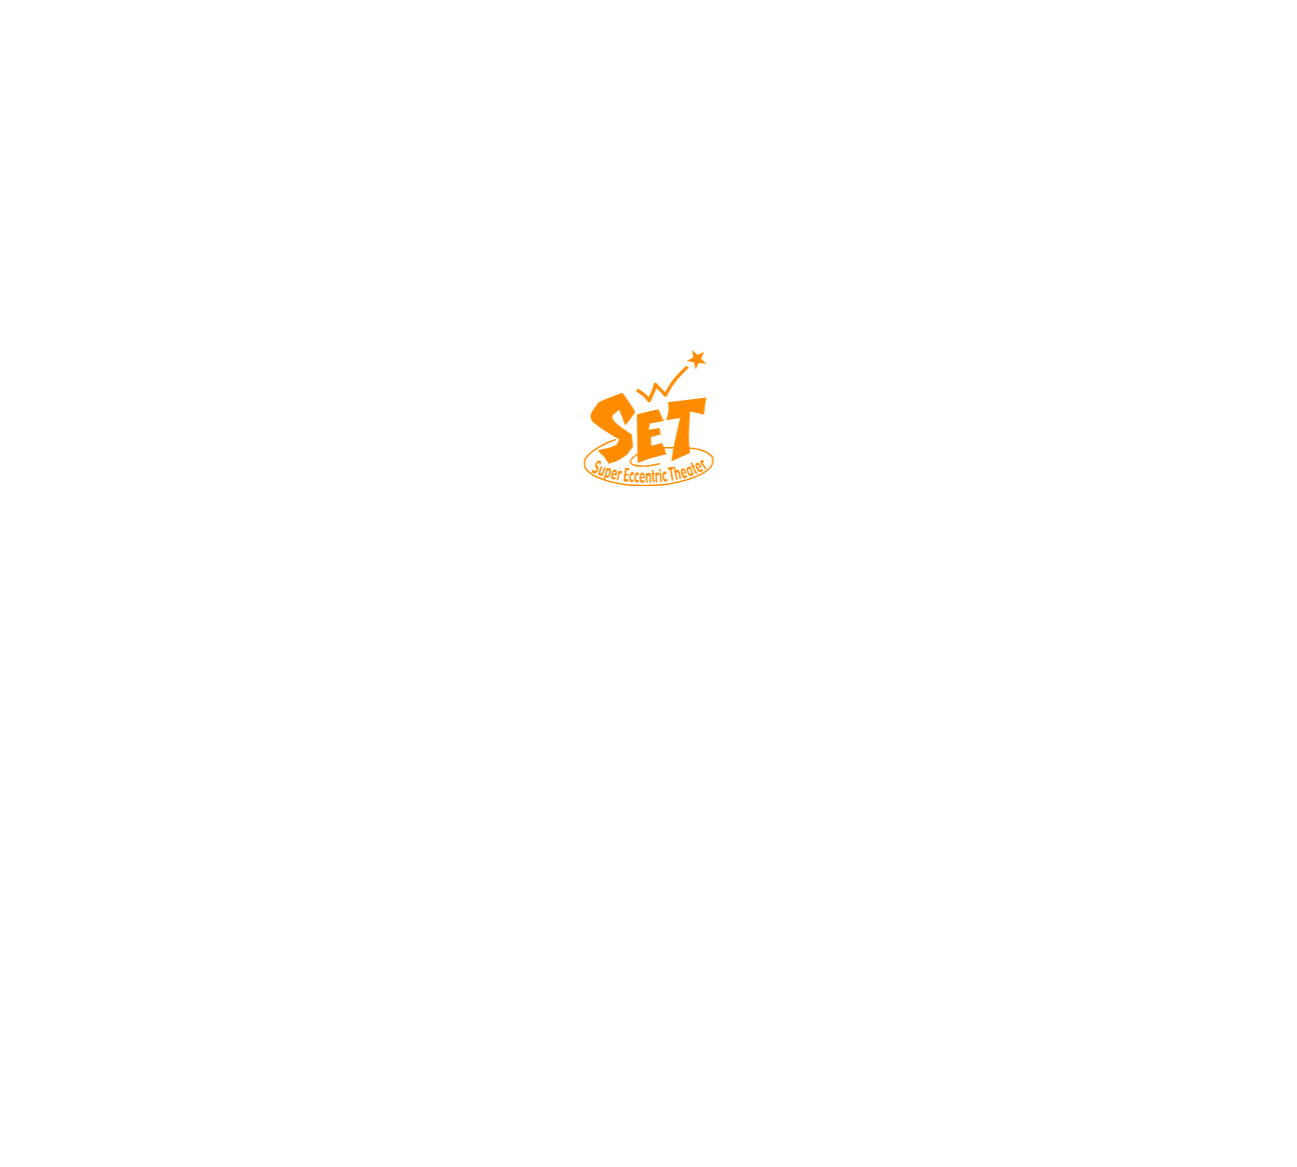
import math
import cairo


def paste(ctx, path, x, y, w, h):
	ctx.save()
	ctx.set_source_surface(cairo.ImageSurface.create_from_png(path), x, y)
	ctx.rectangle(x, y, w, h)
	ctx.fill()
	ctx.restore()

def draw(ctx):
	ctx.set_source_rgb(1, 1, 1)
	ctx.paint()
	paste(ctx, 'media/1.png', 583, 350, 131, 136)


surface = cairo.ImageSurface(cairo.FORMAT_RGB24, 1297, 1167)
ctx = cairo.Context(surface)
options = cairo.FontOptions()
options.set_hint_metrics(cairo.HINT_METRICS_OFF)
options.set_hint_style(cairo.HINT_STYLE_NONE)
ctx.set_font_options(options)
ctx.set_miter_limit(4)
draw(ctx)
surface.write_to_png('image.png')
